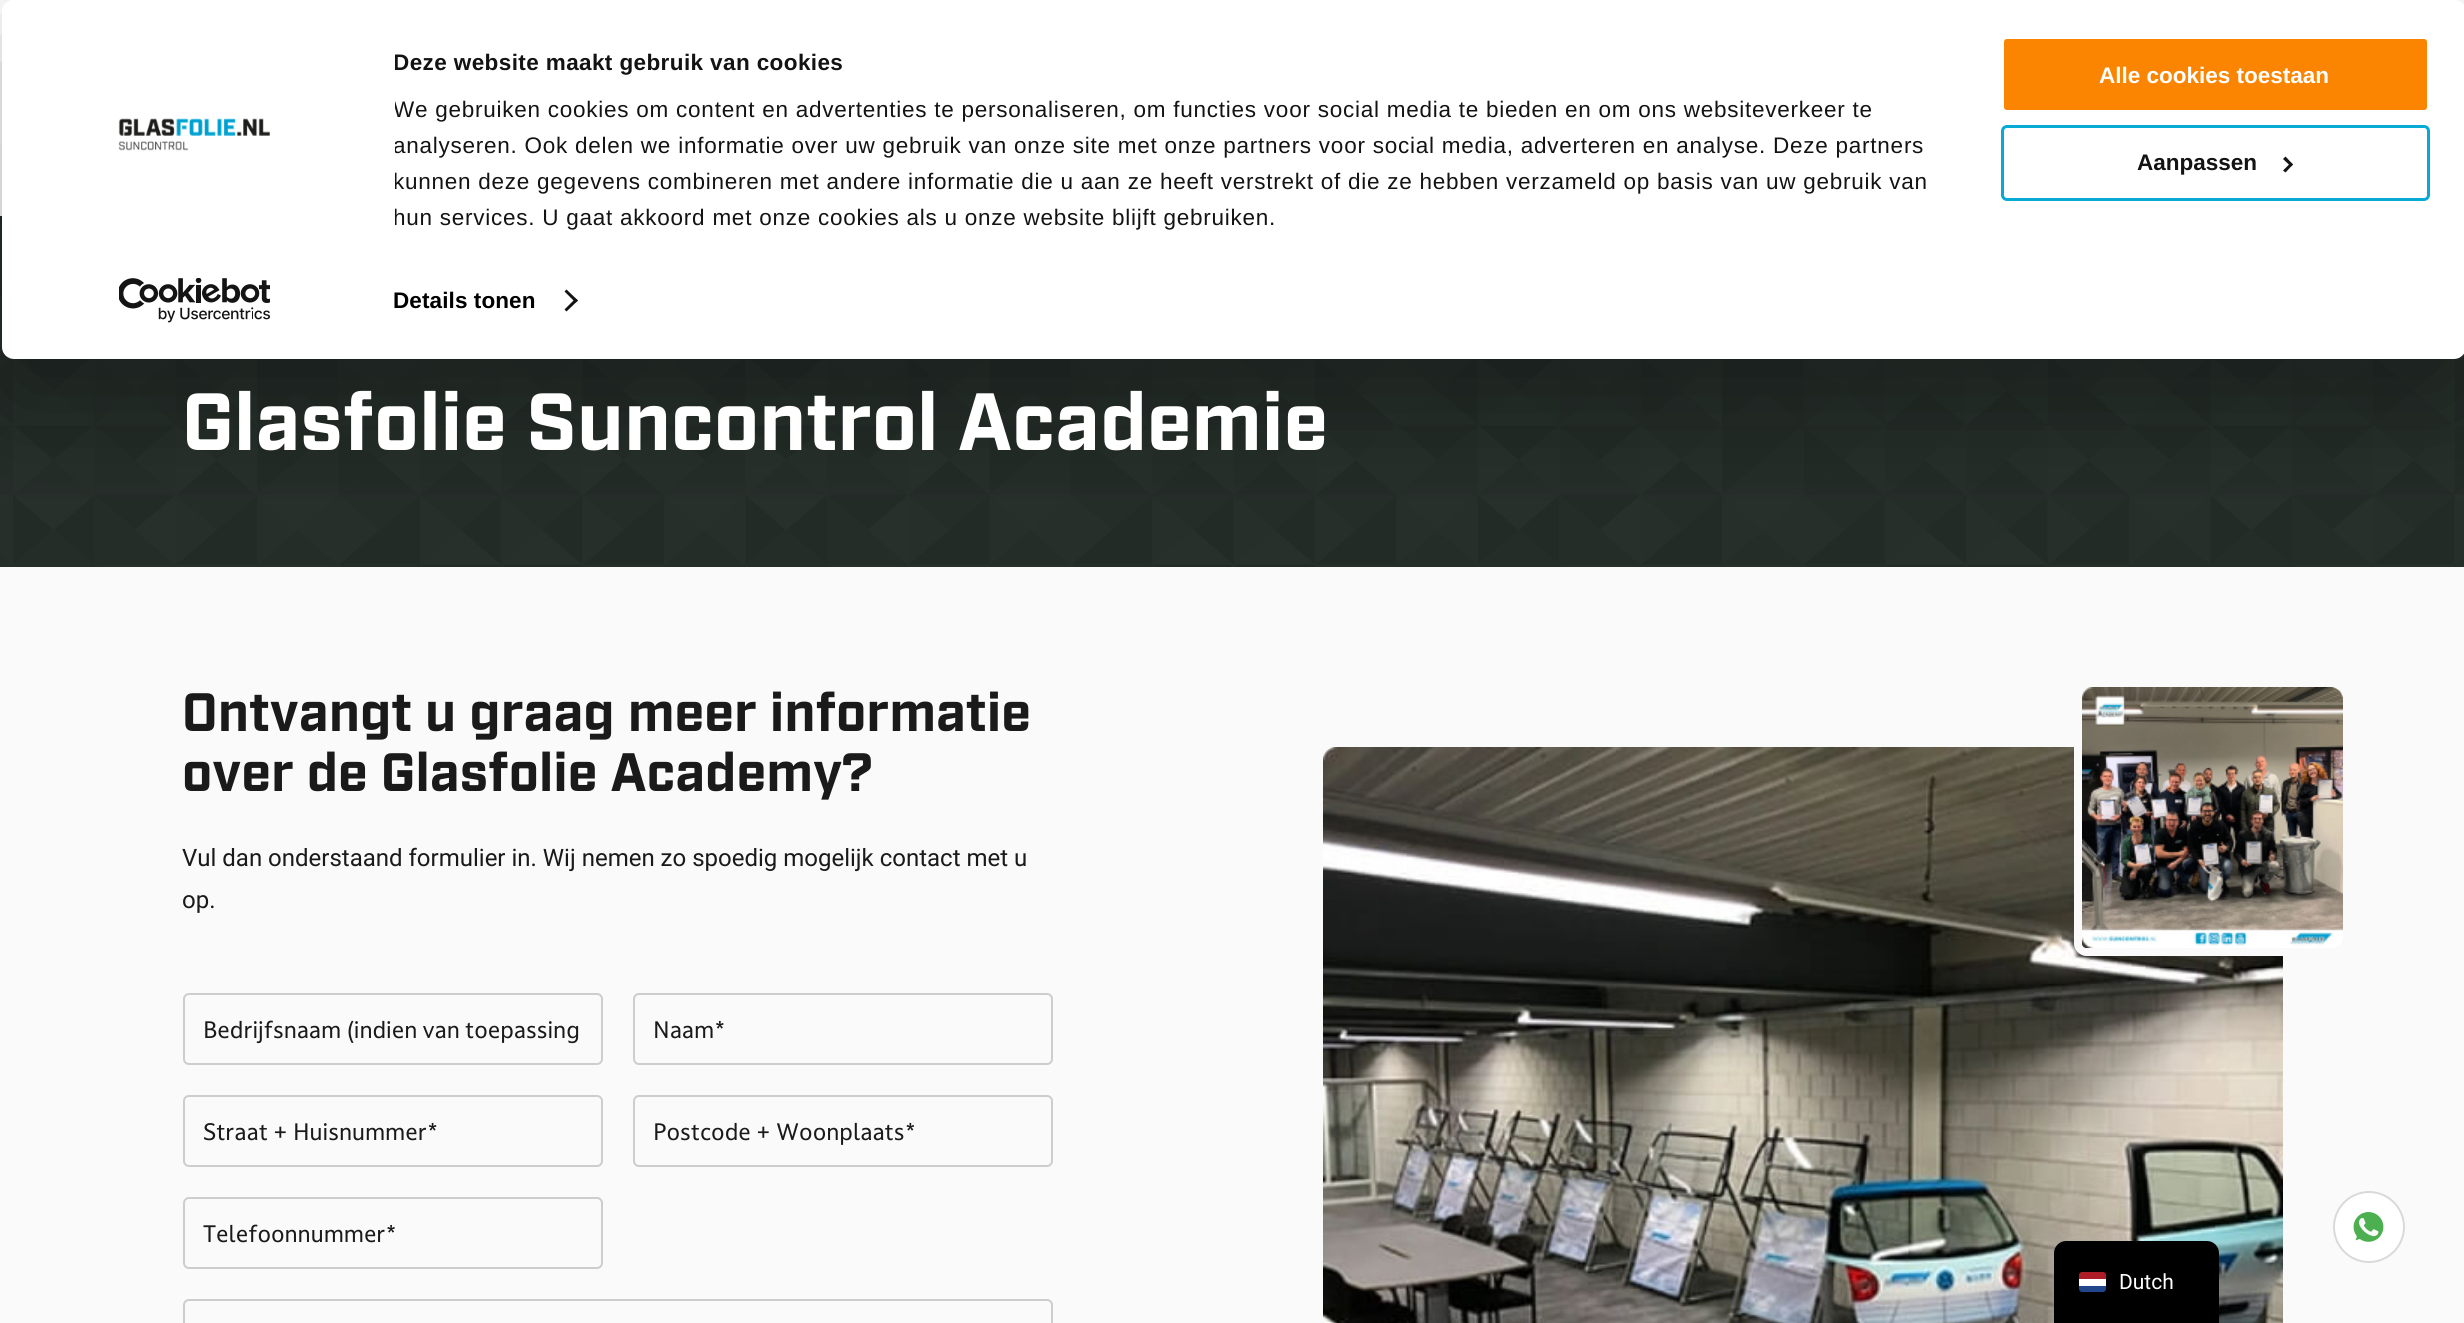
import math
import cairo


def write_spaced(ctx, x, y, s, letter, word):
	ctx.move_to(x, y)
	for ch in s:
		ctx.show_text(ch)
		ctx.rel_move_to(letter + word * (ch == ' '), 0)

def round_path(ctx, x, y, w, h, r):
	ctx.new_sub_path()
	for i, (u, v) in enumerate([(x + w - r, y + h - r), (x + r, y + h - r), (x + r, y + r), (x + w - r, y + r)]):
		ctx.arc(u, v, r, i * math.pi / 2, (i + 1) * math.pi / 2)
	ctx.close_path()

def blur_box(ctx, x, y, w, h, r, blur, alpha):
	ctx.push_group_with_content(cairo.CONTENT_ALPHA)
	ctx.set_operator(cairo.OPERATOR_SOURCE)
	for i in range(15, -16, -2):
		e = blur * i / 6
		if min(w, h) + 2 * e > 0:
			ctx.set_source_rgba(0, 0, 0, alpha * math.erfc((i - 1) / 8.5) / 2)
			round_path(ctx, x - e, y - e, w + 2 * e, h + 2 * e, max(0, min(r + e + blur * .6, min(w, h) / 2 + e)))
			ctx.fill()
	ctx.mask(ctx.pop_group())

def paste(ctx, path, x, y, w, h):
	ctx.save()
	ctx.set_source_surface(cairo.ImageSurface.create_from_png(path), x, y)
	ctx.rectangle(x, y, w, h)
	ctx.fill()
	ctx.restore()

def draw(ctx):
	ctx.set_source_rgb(1, 1, 1)
	ctx.paint()
	ctx.set_source_rgb(0.98, 0.98, 0.98)
	ctx.rectangle(0, 144, 2, 72)
	ctx.fill()
	paste(ctx, 'media/3.png', 0, 216, 2464, 351)
	ctx.save()
	ctx.set_fill_rule(cairo.FILL_RULE_EVEN_ODD)
	ctx.new_path()
	ctx.move_to(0, 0)
	ctx.line_to(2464, 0)
	ctx.line_to(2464, 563)
	ctx.line_to(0, 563)
	ctx.close_path()
	ctx.move_to(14, 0)
	ctx.line_to(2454, 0)
	ctx.curve_to(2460.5, 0, 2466, 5.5, 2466, 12)
	ctx.line_to(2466, 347)
	ctx.curve_to(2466, 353.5, 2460.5, 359, 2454, 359)
	ctx.line_to(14, 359)
	ctx.curve_to(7.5, 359, 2, 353.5, 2, 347)
	ctx.line_to(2, 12)
	ctx.curve_to(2, 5.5, 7.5, 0, 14, 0)
	ctx.close_path()
	ctx.clip()
	ctx.set_source_rgb(0, 0, 0)
	blur_box(ctx, 2, 45, 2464, 359, 12, 52.5, 0.3)
	ctx.restore()
	ctx.set_source_rgb(1, 1, 1)
	round_path(ctx, 2, 0, 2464, 359, 12)
	ctx.fill()
	paste(ctx, 'media/1.png', 118, 118, 152, 33)
	paste(ctx, 'media/2.png', 119, 278, 151, 45)
	ctx.save()
	ctx.rectangle(395, 45, 1563, 191)
	ctx.clip()
	ctx.select_font_face('Liberation Sans', cairo.FONT_SLANT_NORMAL, cairo.FONT_WEIGHT_BOLD)
	ctx.set_font_size(22.5)
	ctx.set_source_rgb(0.078, 0.078, 0.078)
	write_spaced(ctx, 393, 70, 'Deze website maakt gebruik van cookies', 0.4, 0)
	ctx.select_font_face('Liberation Sans')
	for x, y, s in [
		(393, 117, 'We gebruiken cookies om content en advertenties te personaliseren, om functies voor social media te bieden en om ons websiteverkeer te'),
		(393, 153, 'analyseren. Ook delen we informatie over uw gebruik van onze site met onze partners voor social media, adverteren en analyse. Deze partners'),
		(393, 189, 'kunnen deze gegevens combineren met andere informatie die u aan ze heeft verstrekt of die ze hebben verzameld op basis van uw gebruik van'),
		(393, 225, 'hun services. U gaat akkoord met onze cookies als u onze website blijft gebruiken.'),
	]:
		write_spaced(ctx, x, y, s, 0.75, 0)
	ctx.restore()
	ctx.select_font_face('Liberation Sans', cairo.FONT_SLANT_NORMAL, cairo.FONT_WEIGHT_BOLD)
	ctx.set_font_size(22.5)
	ctx.set_source_rgb(0, 0, 0)
	write_spaced(ctx, 393, 308, 'Details tonen', 0.1, 0)
	ctx.set_source_rgb(0.078, 0.078, 0.078)
	ctx.new_path()
	ctx.move_to(566.5, 289.5)
	ctx.line_to(578, 300.5)
	ctx.line_to(575.5, 302.5)
	ctx.line_to(564.5, 291.5)
	ctx.close_path()
	ctx.fill()
	ctx.new_path()
	ctx.move_to(575.5, 298.5)
	ctx.line_to(578, 300.5)
	ctx.line_to(566.5, 311.5)
	ctx.line_to(564.5, 309.5)
	ctx.close_path()
	ctx.fill()
	ctx.set_source_rgb(0.984, 0.522, 0)
	round_path(ctx, 2002.5, 37.5, 426, 74, 4.5)
	ctx.fill_preserve()
	ctx.set_source_rgb(1, 1, 1)
	ctx.set_line_width(3)
	ctx.stroke()
	ctx.move_to(2099, 83)
	ctx.show_text('Alle cookies toestaan')
	round_path(ctx, 2002.5, 126.5, 426, 73, 4.5)
	ctx.set_source_rgb(0.031, 0.667, 0.831)
	ctx.stroke()
	ctx.set_source_rgb(0.078, 0.078, 0.078)
	ctx.move_to(2137, 170)
	ctx.show_text('Aanpassen')
	ctx.new_path()
	ctx.move_to(2285.5, 156.5)
	ctx.line_to(2293, 164.5)
	ctx.line_to(2291, 166.5)
	ctx.line_to(2283, 159)
	ctx.close_path()
	ctx.fill()
	ctx.new_path()
	ctx.move_to(2291, 162.5)
	ctx.line_to(2293, 164.5)
	ctx.line_to(2285.5, 172.5)
	ctx.line_to(2283, 170.5)
	ctx.close_path()
	ctx.fill()
	ctx.select_font_face('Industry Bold', cairo.FONT_SLANT_NORMAL, cairo.FONT_WEIGHT_BOLD)
	ctx.set_font_size(81)
	ctx.set_source_rgb(1, 1, 1)
	ctx.move_to(182, 450)
	ctx.show_text('Glasfolie Suncontrol Academie')
	ctx.set_source_rgb(0.98, 0.98, 0.98)
	ctx.rectangle(0, 567, 2464, 756)
	ctx.fill()
	ctx.set_font_size(54)
	ctx.set_source_rgb(0.102, 0.102, 0.102)
	ctx.move_to(182, 731)
	ctx.show_text('Ontvangt u graag meer informatie')
	ctx.move_to(182, 791)
	ctx.show_text('over de Glasfolie Academy?')
	ctx.select_font_face('Roboto')
	ctx.set_font_size(24)
	ctx.move_to(182, 866)
	ctx.show_text('Vul dan onderstaand formulier in. Wij nemen zo spoedig mogelijk contact met u')
	ctx.move_to(182, 908)
	ctx.show_text('op.')
	round_path(ctx, 184, 994, 418, 70, 5)
	ctx.set_source_rgb(0.804, 0.804, 0.804)
	ctx.set_line_width(2)
	ctx.stroke()
	ctx.select_font_face('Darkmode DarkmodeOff')
	ctx.set_font_size(22.5)
	ctx.set_source_rgb(0.102, 0.102, 0.102)
	ctx.move_to(203, 1038)
	ctx.show_text('Bedrijfsnaam (indien van toepassing')
	round_path(ctx, 634, 994, 418, 70, 5)
	ctx.set_source_rgb(0.804, 0.804, 0.804)
	ctx.stroke()
	ctx.set_source_rgb(0.102, 0.102, 0.102)
	ctx.move_to(653, 1038)
	ctx.show_text('Naam*')
	round_path(ctx, 184, 1096, 418, 70, 5)
	ctx.set_source_rgb(0.804, 0.804, 0.804)
	ctx.stroke()
	ctx.set_source_rgb(0.102, 0.102, 0.102)
	ctx.move_to(203, 1140)
	ctx.show_text('Straat + Huisnummer*')
	round_path(ctx, 634, 1096, 418, 70, 5)
	ctx.set_source_rgb(0.804, 0.804, 0.804)
	ctx.stroke()
	ctx.set_source_rgb(0.102, 0.102, 0.102)
	ctx.move_to(653, 1140)
	ctx.show_text('Postcode + Woonplaats*')
	round_path(ctx, 184, 1198, 418, 70, 5)
	ctx.set_source_rgb(0.804, 0.804, 0.804)
	ctx.stroke()
	ctx.set_source_rgb(0.102, 0.102, 0.102)
	ctx.move_to(203, 1242)
	ctx.show_text('Telefoonnummer*')
	round_path(ctx, 184, 1300, 868, 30, 5)
	ctx.set_source_rgb(0.804, 0.804, 0.804)
	ctx.stroke()
	paste(ctx, 'media/4.png', 1323, 747, 960, 576)
	paste(ctx, 'media/5.png', 2082, 687, 261, 261)
	ctx.set_source_rgb(0.98, 0.98, 0.98)
	ctx.set_fill_rule(cairo.FILL_RULE_EVEN_ODD)
	ctx.new_path()
	ctx.move_to(2086, 687)
	ctx.line_to(2331, 687)
	ctx.curve_to(2338, 687, 2343, 692, 2343, 699)
	ctx.line_to(2343, 944)
	ctx.curve_to(2343, 950, 2338, 956, 2331, 956)
	ctx.line_to(2086, 956)
	ctx.curve_to(2080, 956, 2074, 950, 2074, 944)
	ctx.line_to(2074, 699)
	ctx.curve_to(2074, 692, 2080, 687, 2086, 687)
	ctx.close_path()
	ctx.move_to(2086, 687)
	ctx.line_to(2331, 687)
	ctx.curve_to(2338, 687, 2343, 692, 2343, 699)
	ctx.line_to(2343, 944)
	ctx.curve_to(2343, 946, 2338, 948, 2331, 948)
	ctx.line_to(2086, 948)
	ctx.curve_to(2084, 948, 2082, 946, 2082, 944)
	ctx.line_to(2082, 699)
	ctx.curve_to(2082, 692, 2084, 687, 2086, 687)
	ctx.close_path()
	ctx.fill()
	ctx.set_source_rgb(1, 1, 1)
	ctx.arc(2369, 1227, 36, 0, 2 * math.pi)
	ctx.fill()
	paste(ctx, 'media/6.png', 2353, 1212, 31, 30)
	ctx.arc(2369, 1227, 35, 0, 2 * math.pi)
	ctx.set_source_rgb(0.851, 0.851, 0.851)
	ctx.stroke()
	ctx.set_source_rgb(0, 0, 0)
	ctx.new_path()
	ctx.move_to(2066, 1241)
	ctx.line_to(2207, 1241)
	ctx.curve_to(2213.5, 1241, 2219, 1246.5, 2219, 1253)
	ctx.line_to(2219, 1323)
	ctx.line_to(2054, 1323)
	ctx.line_to(2054, 1253)
	ctx.curve_to(2054, 1246.5, 2059.5, 1241, 2066, 1241)
	ctx.close_path()
	ctx.fill()
	ctx.set_source_rgb(0.682, 0.11, 0.157)
	ctx.new_path()
	ctx.move_to(2082, 1272)
	ctx.line_to(2103, 1272)
	ctx.curve_to(2104.5, 1272, 2106, 1273.5, 2106, 1275)
	ctx.line_to(2106, 1279)
	ctx.line_to(2079, 1279)
	ctx.line_to(2079, 1275)
	ctx.curve_to(2079, 1273.5, 2080.5, 1272, 2082, 1272)
	ctx.close_path()
	ctx.fill()
	ctx.set_source_rgb(1, 1, 1)
	ctx.rectangle(2079, 1279, 27, 7)
	ctx.fill()
	ctx.set_source_rgb(0.129, 0.275, 0.545)
	ctx.new_path()
	ctx.move_to(2079, 1286)
	ctx.line_to(2106, 1286)
	ctx.line_to(2106, 1289)
	ctx.curve_to(2106, 1290.5, 2104.5, 1292, 2103, 1292)
	ctx.line_to(2082, 1292)
	ctx.curve_to(2080.5, 1292, 2079, 1290.5, 2079, 1289)
	ctx.close_path()
	ctx.fill()
	ctx.select_font_face('Roboto')
	ctx.set_font_size(21)
	ctx.set_source_rgb(1, 1, 1)
	ctx.move_to(2119, 1289)
	ctx.show_text('Dutch')


surface = cairo.ImageSurface(cairo.FORMAT_RGB24, 2464, 1323)
ctx = cairo.Context(surface)
options = cairo.FontOptions()
options.set_hint_metrics(cairo.HINT_METRICS_OFF)
options.set_hint_style(cairo.HINT_STYLE_NONE)
ctx.set_font_options(options)
ctx.set_miter_limit(4)
draw(ctx)
surface.write_to_png('image.png')
